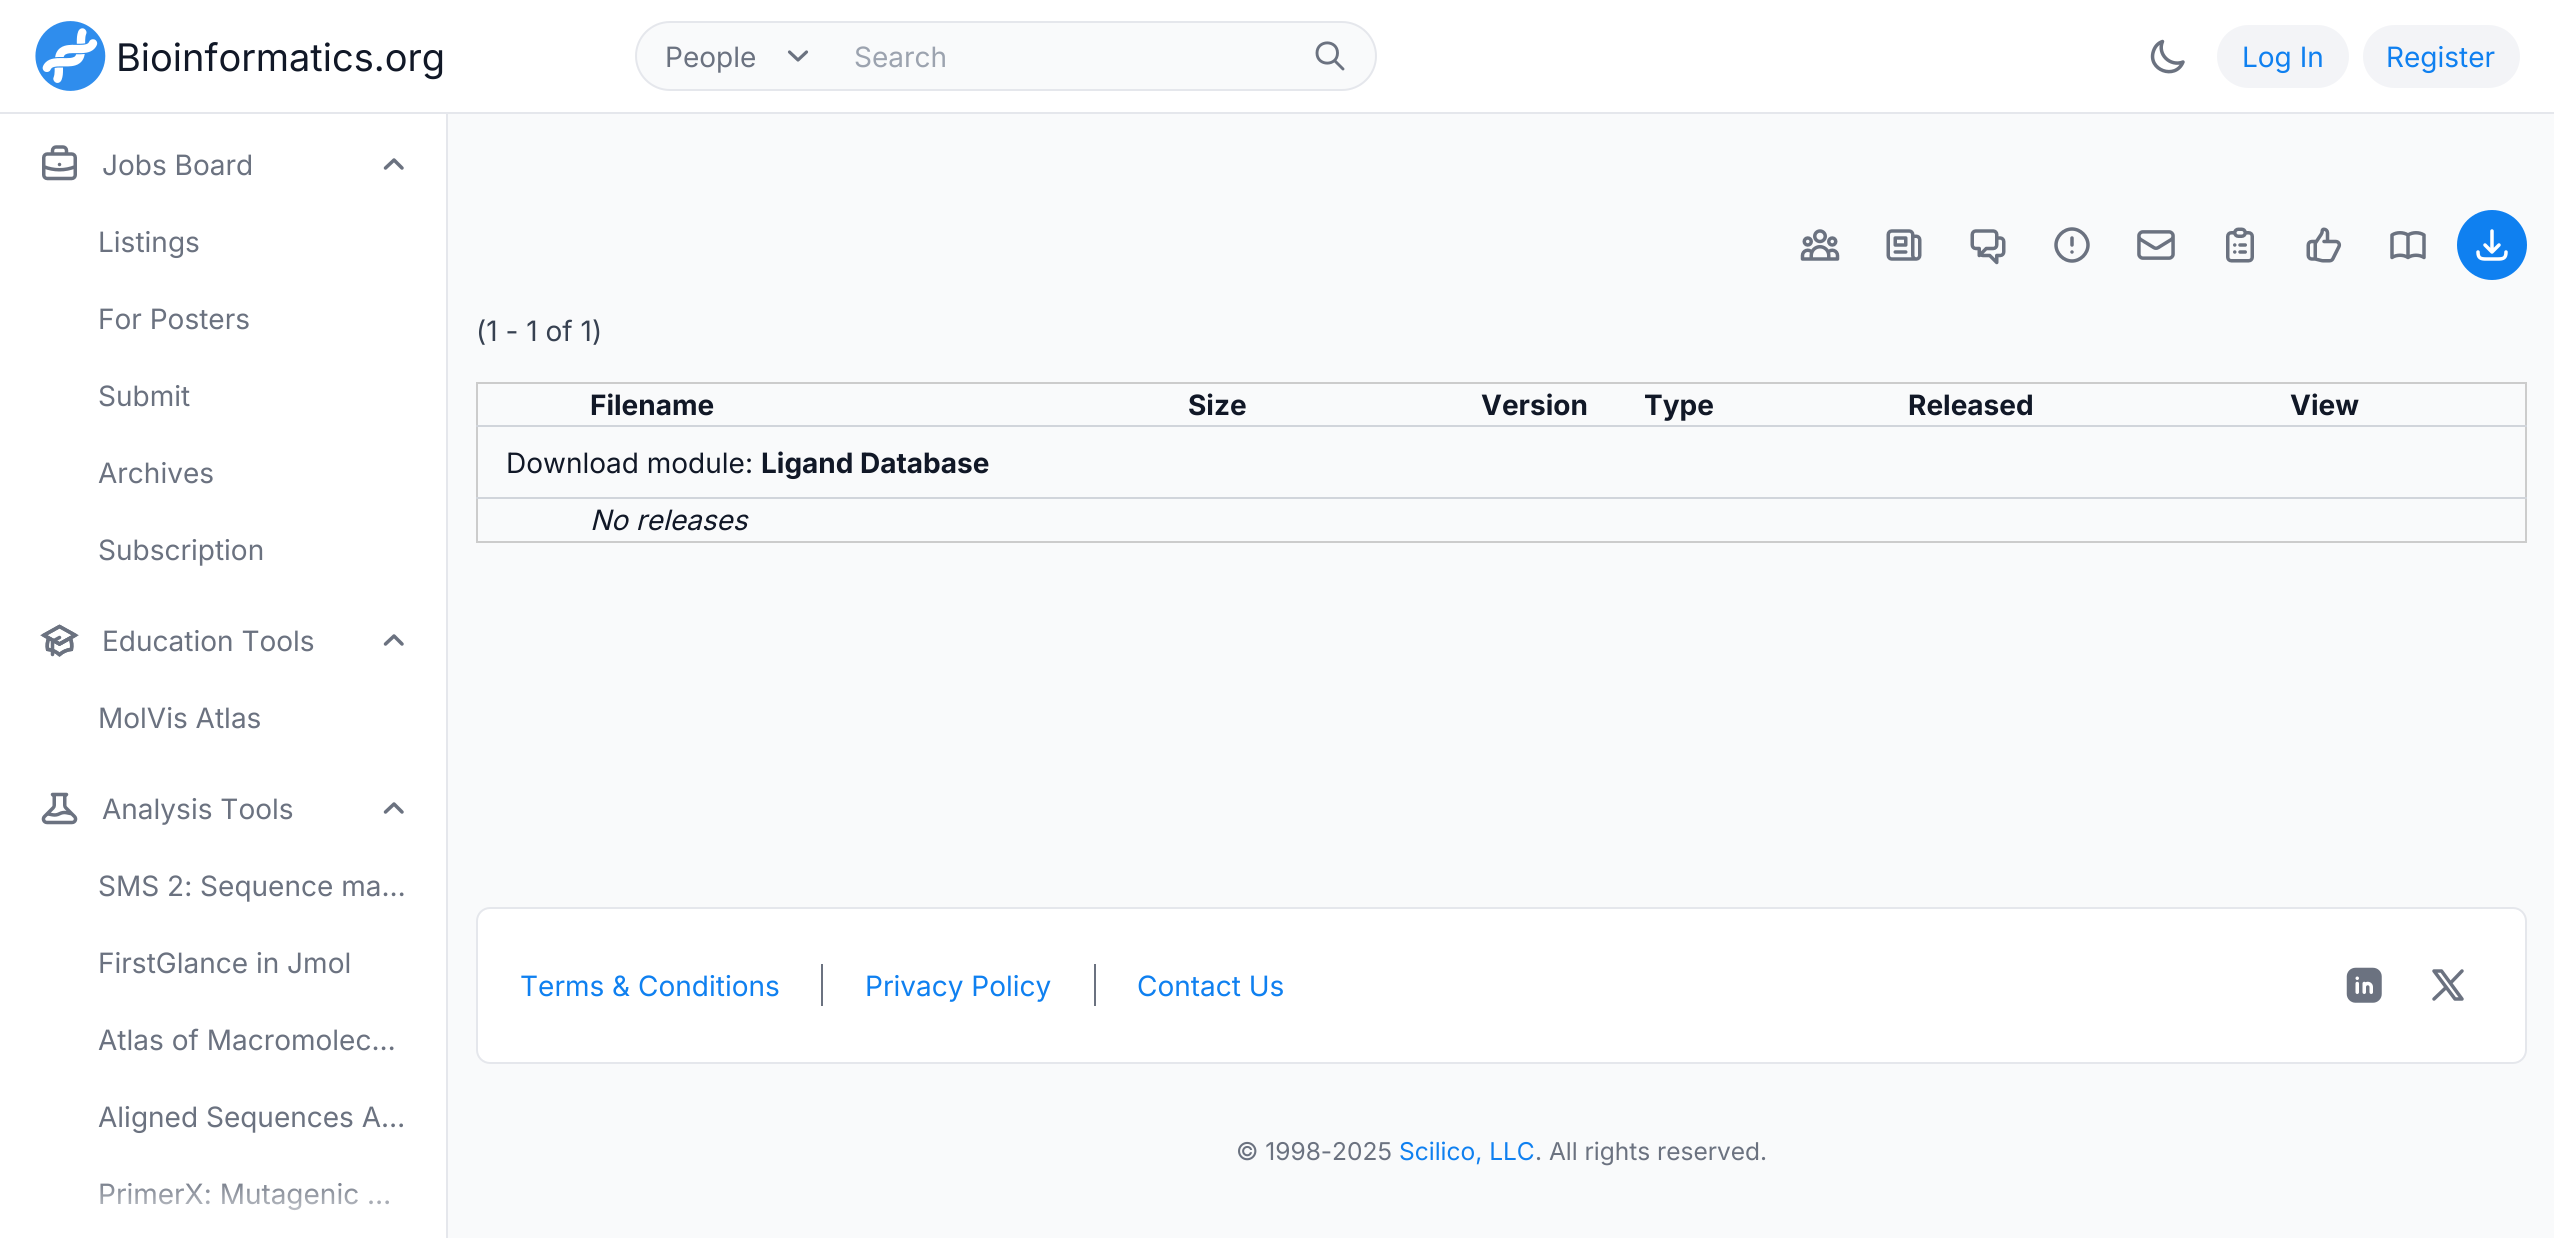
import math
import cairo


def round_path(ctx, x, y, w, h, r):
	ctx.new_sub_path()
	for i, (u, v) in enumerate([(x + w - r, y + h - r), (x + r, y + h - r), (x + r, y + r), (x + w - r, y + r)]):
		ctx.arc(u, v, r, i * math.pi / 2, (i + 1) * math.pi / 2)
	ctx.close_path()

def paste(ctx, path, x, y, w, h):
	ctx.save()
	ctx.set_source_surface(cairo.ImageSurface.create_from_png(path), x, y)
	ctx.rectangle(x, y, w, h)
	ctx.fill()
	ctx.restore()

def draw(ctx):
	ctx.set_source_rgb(0.976, 0.98, 0.984)
	ctx.paint()
	ctx.set_source_rgb(1, 1, 1)
	ctx.rectangle(0, 0, 2554, 112)
	ctx.fill()
	ctx.set_source_rgb(0.898, 0.906, 0.922)
	ctx.rectangle(446, 112, 2, 1126)
	ctx.rectangle(0, 112, 2554, 2)
	ctx.fill()
	paste(ctx, 'media/1.png', 35, 21, 71, 70)
	ctx.select_font_face('Inter')
	ctx.set_font_size(38)
	ctx.set_source_rgb(0.067, 0.094, 0.153)
	ctx.move_to(116, 71)
	ctx.show_text('Bioinformatics.org')
	ctx.set_source_rgb(0.976, 0.98, 0.984)
	round_path(ctx, 636, 22, 740, 68, 34)
	ctx.fill_preserve()
	ctx.set_source_rgb(0.898, 0.906, 0.922)
	ctx.stroke()
	ctx.new_path()
	ctx.move_to(789.5, 52)
	ctx.line_to(798, 60)
	ctx.line_to(806.5, 52)
	ctx.set_source_rgb(0.42, 0.447, 0.502)
	ctx.set_line_width(3.2)
	ctx.set_line_cap(cairo.LINE_CAP_ROUND)
	ctx.set_line_join(cairo.LINE_JOIN_ROUND)
	ctx.stroke()
	ctx.set_font_size(28)
	ctx.move_to(665, 67)
	ctx.show_text('People')
	ctx.set_source_rgb(0.612, 0.639, 0.686)
	ctx.move_to(854, 67)
	ctx.show_text('Search')
	ctx.new_path()
	ctx.move_to(1343, 69)
	ctx.line_to(1334.5, 60.5)
	ctx.move_to(1337.5, 53)
	ctx.curve_to(1337.5, 66.5, 1317, 66.5, 1317, 53)
	ctx.curve_to(1317, 39.5, 1337.5, 39.5, 1337.5, 53)
	ctx.set_source_rgb(0.42, 0.447, 0.502)
	ctx.set_line_width(2.9)
	ctx.stroke()
	ctx.new_path()
	ctx.move_to(2183, 62)
	ctx.curve_to(2170, 67, 2157, 54, 2162.5, 41.5)
	ctx.curve_to(2158, 43, 2155, 46.5, 2153.5, 51)
	ctx.curve_to(2147, 70, 2175.5, 80.5, 2183, 62)
	ctx.set_line_width(3.5)
	ctx.stroke()
	ctx.set_source_rgb(0.953, 0.957, 0.965)
	round_path(ctx, 2217, 25, 132, 63, 31.5)
	ctx.fill()
	ctx.set_source_rgb(0.059, 0.502, 0.941)
	ctx.move_to(2242, 67)
	ctx.show_text('Log In')
	ctx.set_source_rgb(0.953, 0.957, 0.965)
	round_path(ctx, 2363, 25, 157, 63, 31.5)
	ctx.fill()
	ctx.set_source_rgb(0.059, 0.502, 0.941)
	ctx.move_to(2386, 67)
	ctx.show_text('Register')
	ctx.set_source_rgb(1, 1, 1)
	ctx.rectangle(0, 114, 446, 1124)
	ctx.fill()
	paste(ctx, 'media/2.png', 42, 145, 35, 36)
	ctx.set_source_rgb(0.42, 0.447, 0.502)
	ctx.move_to(102, 175)
	ctx.show_text('Jobs Board')
	ctx.new_path()
	ctx.move_to(385.5, 168)
	ctx.line_to(394, 160)
	ctx.line_to(402, 168)
	ctx.stroke()
	for x, y, s in [
		(98, 252, 'Listings'),
		(98, 329, 'For Posters'),
		(98, 406, 'Submit'),
		(98, 483, 'Archives'),
		(98, 560, 'Subscription'),
	]:
		ctx.move_to(x, y)
		ctx.show_text(s)
	paste(ctx, 'media/3.png', 40, 624, 39, 33)
	ctx.move_to(102, 651)
	ctx.show_text('Education Tools')
	ctx.new_path()
	ctx.move_to(385.5, 644)
	ctx.line_to(394, 636)
	ctx.line_to(402, 644)
	ctx.stroke()
	ctx.move_to(98, 728)
	ctx.show_text('MolVis Atlas')
	paste(ctx, 'media/4.png', 41, 792, 37, 33)
	ctx.move_to(102, 819)
	ctx.show_text('Analysis Tools')
	ctx.new_path()
	ctx.move_to(385.5, 812)
	ctx.line_to(394, 804)
	ctx.line_to(402, 812)
	ctx.stroke()
	for x, y, s in [
		(98, 896, 'SMS 2: Sequence ma…'),
		(98, 973, 'FirstGlance in Jmol'),
		(98, 1050, 'Atlas of Macromolec…'),
		(98, 1127, 'Aligned Sequences A…'),
		(98, 1204, 'PrimerX: Mutagenic …'),
	]:
		ctx.move_to(x, y)
		ctx.show_text(s)
	gradient = cairo.LinearGradient(223, 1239, 223, 1176)
	gradient.add_color_stop_rgba(0, 1, 1, 1, 1)
	gradient.add_color_stop_rgba(1, 1, 1, 1, 0)
	ctx.set_source(gradient)
	ctx.rectangle(100, 1183, 289, 27)
	ctx.fill()
	paste(ctx, 'media/5.png', 1800, 229, 40, 32)
	paste(ctx, 'media/6.png', 1886, 229, 36, 32)
	paste(ctx, 'media/7.png', 1970, 229, 36, 36)
	ctx.new_path()
	ctx.move_to(2072, 238)
	ctx.line_to(2072, 245)
	ctx.move_to(2072, 252)
	ctx.line_to(2072, 252)
	ctx.move_to(2088, 245)
	ctx.curve_to(2088, 253.5, 2080.5, 261, 2072, 261)
	ctx.curve_to(2063.5, 261, 2056, 253.5, 2056, 245)
	ctx.curve_to(2056, 236.5, 2063.5, 229, 2072, 229)
	ctx.curve_to(2080.5, 229, 2088, 236.5, 2088, 245)
	ctx.set_source_rgb(0.42, 0.447, 0.502)
	ctx.stroke()
	paste(ctx, 'media/8.png', 2137, 230, 38, 30)
	paste(ctx, 'media/9.png', 2226, 227, 28, 36)
	paste(ctx, 'media/10.png', 2306, 227, 36, 36)
	ctx.new_path()
	ctx.move_to(2408, 235)
	ctx.line_to(2408, 257.5)
	ctx.move_to(2408, 235)
	ctx.curve_to(2403.5, 232, 2396.5, 232, 2392, 235)
	ctx.line_to(2392, 257.5)
	ctx.curve_to(2396.5, 254.5, 2403.5, 254.5, 2408, 257.5)
	ctx.move_to(2408, 235)
	ctx.curve_to(2412.5, 232, 2419.5, 232, 2424, 235)
	ctx.line_to(2424, 257.5)
	ctx.curve_to(2419.5, 254.5, 2412.5, 254.5, 2408, 257.5)
	ctx.stroke()
	ctx.set_source_rgb(0.059, 0.502, 0.941)
	ctx.arc(2492, 245, 35, 0, 2 * math.pi)
	ctx.fill()
	ctx.new_path()
	ctx.move_to(2478, 252)
	ctx.curve_to(2478, 258, 2480.5, 259, 2486, 259)
	ctx.line_to(2498, 259)
	ctx.curve_to(2503.5, 259, 2506, 258, 2506, 252)
	ctx.move_to(2499, 245)
	ctx.line_to(2492, 252)
	ctx.move_to(2492, 252)
	ctx.line_to(2485, 245)
	ctx.move_to(2492, 252)
	ctx.line_to(2492, 231)
	ctx.set_source_rgb(1, 1, 1)
	ctx.stroke()
	ctx.set_source_rgb(0.216, 0.255, 0.318)
	ctx.move_to(476, 341)
	ctx.show_text('(1 - 1 of 1)')
	ctx.set_source_rgb(0.8, 0.8, 0.8)
	ctx.rectangle(476, 382, 2051, 2)
	ctx.rectangle(2525, 382, 2, 161)
	ctx.rectangle(476, 541, 2051, 2)
	ctx.rectangle(476, 382, 2, 161)
	ctx.fill()
	ctx.set_source_rgb(0.82, 0.835, 0.859)
	ctx.rectangle(476, 425, 2051, 2)
	ctx.fill()
	ctx.select_font_face('Inter', cairo.FONT_SLANT_NORMAL, cairo.FONT_WEIGHT_BOLD)
	ctx.set_source_rgb(0.067, 0.094, 0.153)
	for x, y, s in [
		(590, 415, 'Filename'),
		(1188, 415, 'Size'),
		(1481, 415, 'Version'),
		(1644, 415, 'Type'),
		(1908, 415, 'Released'),
		(2290, 415, 'View'),
	]:
		ctx.move_to(x, y)
		ctx.show_text(s)
	ctx.set_source_rgb(0.82, 0.835, 0.859)
	ctx.rectangle(476, 497, 2051, 2)
	ctx.fill()
	ctx.select_font_face('Inter')
	ctx.set_source_rgb(0.067, 0.094, 0.153)
	ctx.move_to(506, 473)
	ctx.show_text('Download module:')
	ctx.select_font_face('Inter', cairo.FONT_SLANT_NORMAL, cairo.FONT_WEIGHT_BOLD)
	ctx.move_to(761, 473)
	ctx.show_text('Ligand Database')
	ctx.select_font_face('Inter', cairo.FONT_SLANT_ITALIC)
	ctx.move_to(590, 530)
	ctx.show_text('No releases')
	ctx.set_source_rgb(1, 1, 1)
	round_path(ctx, 477, 908, 2049, 155, 13)
	ctx.fill_preserve()
	ctx.set_source_rgb(0.898, 0.906, 0.922)
	ctx.set_line_width(2)
	ctx.set_line_cap(cairo.LINE_CAP_BUTT)
	ctx.set_line_join(cairo.LINE_JOIN_MITER)
	ctx.stroke()
	ctx.select_font_face('Inter')
	ctx.set_source_rgb(0.059, 0.502, 0.941)
	ctx.move_to(520, 996)
	ctx.show_text('Terms & Conditions')
	ctx.set_source_rgb(0.42, 0.447, 0.502)
	ctx.rectangle(821, 964, 2, 42)
	ctx.fill()
	ctx.set_source_rgb(0.059, 0.502, 0.941)
	ctx.move_to(865, 996)
	ctx.show_text('Privacy Policy')
	ctx.set_source_rgb(0.42, 0.447, 0.502)
	ctx.rectangle(1094, 964, 2, 42)
	ctx.fill()
	ctx.set_source_rgb(0.059, 0.502, 0.941)
	ctx.move_to(1137, 996)
	ctx.show_text('Contact Us')
	paste(ctx, 'media/11.png', 2346, 967, 36, 36)
	ctx.new_path()
	ctx.move_to(2434, 971)
	ctx.line_to(2455, 999)
	ctx.line_to(2462, 999)
	ctx.line_to(2441.5, 971)
	ctx.close_path()
	ctx.move_to(2434, 999)
	ctx.line_to(2446, 987.5)
	ctx.move_to(2450.5, 983)
	ctx.line_to(2462, 971)
	ctx.set_source_rgb(0.42, 0.447, 0.502)
	ctx.set_line_width(3.5)
	ctx.set_line_cap(cairo.LINE_CAP_ROUND)
	ctx.set_line_join(cairo.LINE_JOIN_ROUND)
	ctx.stroke()
	ctx.set_font_size(24.5)
	ctx.move_to(1236, 1160)
	ctx.show_text('© 1998-2025')
	ctx.set_source_rgb(0.059, 0.502, 0.941)
	ctx.move_to(1399, 1160)
	ctx.show_text('Scilico, LLC')
	ctx.set_source_rgb(0.42, 0.447, 0.502)
	ctx.move_to(1535, 1160)
	ctx.show_text('. All rights reserved.')


surface = cairo.ImageSurface(cairo.FORMAT_RGB24, 2554, 1238)
ctx = cairo.Context(surface)
options = cairo.FontOptions()
options.set_hint_metrics(cairo.HINT_METRICS_OFF)
options.set_hint_style(cairo.HINT_STYLE_NONE)
ctx.set_font_options(options)
ctx.set_miter_limit(4)
draw(ctx)
surface.write_to_png('image.png')
